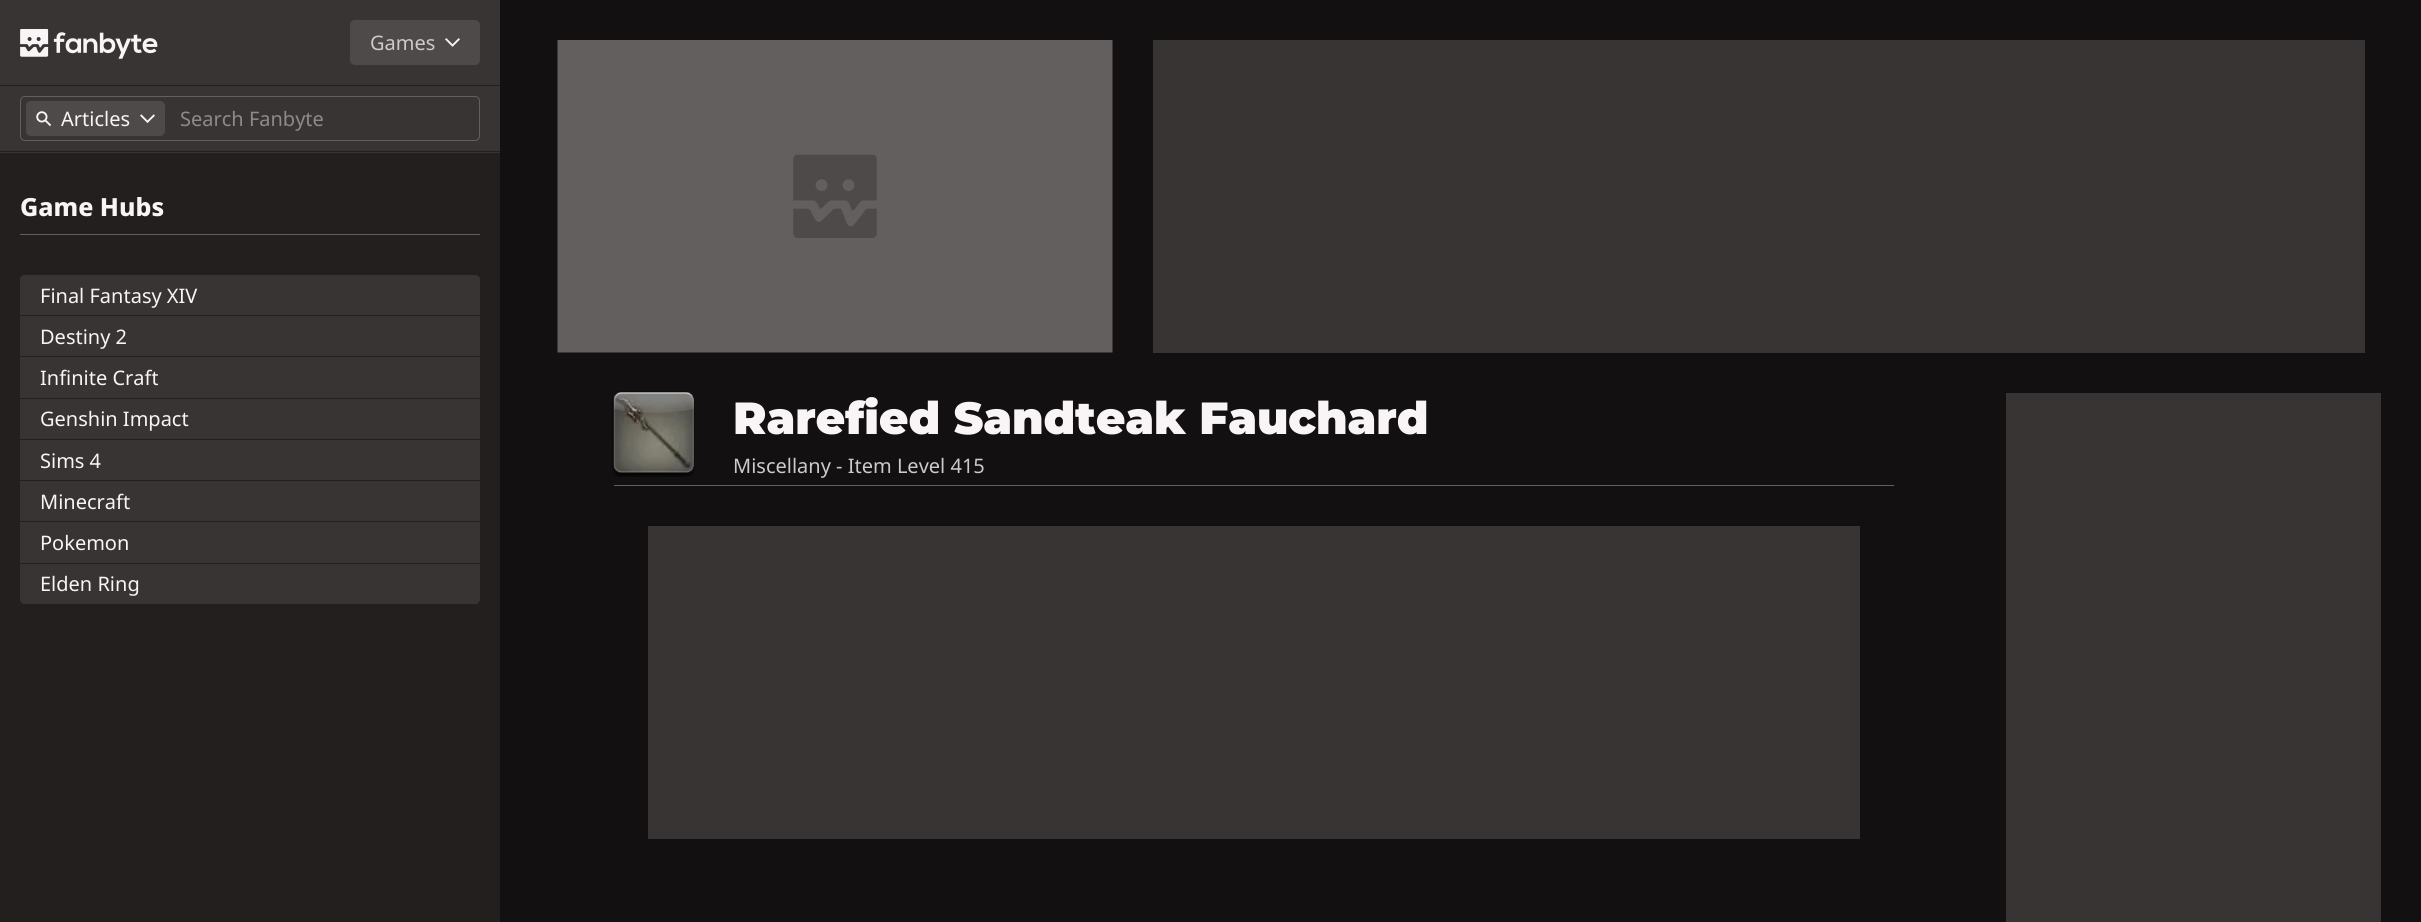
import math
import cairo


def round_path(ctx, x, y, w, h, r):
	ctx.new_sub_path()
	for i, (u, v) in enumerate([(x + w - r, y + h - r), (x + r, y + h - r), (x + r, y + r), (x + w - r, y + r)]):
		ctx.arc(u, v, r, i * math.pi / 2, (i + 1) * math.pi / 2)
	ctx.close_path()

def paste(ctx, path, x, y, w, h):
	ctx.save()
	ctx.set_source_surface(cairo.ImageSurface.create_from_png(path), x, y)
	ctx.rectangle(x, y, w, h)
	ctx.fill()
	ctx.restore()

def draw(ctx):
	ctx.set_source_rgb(0.071, 0.063, 0.063)
	ctx.paint()
	ctx.set_source_rgb(0.137, 0.122, 0.122)
	ctx.rectangle(0, 153, 500, 769)
	ctx.fill()
	ctx.set_source_rgb(0.22, 0.204, 0.204)
	ctx.rectangle(0, 0, 500, 85)
	ctx.fill()
	ctx.set_source_rgb(0.137, 0.122, 0.122)
	ctx.rectangle(0, 85, 500, 1)
	ctx.fill()
	paste(ctx, 'media/1.png', 20, 29, 138, 30)
	ctx.set_source_rgb(0.306, 0.29, 0.29)
	round_path(ctx, 350, 20, 130, 45, 5)
	ctx.fill()
	ctx.select_font_face('Noto Sans')
	ctx.set_font_size(20)
	ctx.set_source_rgb(0.808, 0.788, 0.792)
	ctx.move_to(370, 50)
	ctx.show_text('Games')
	paste(ctx, 'media/2.png', 445, 38, 15, 9)
	ctx.set_source_rgb(0.22, 0.204, 0.204)
	ctx.rectangle(0, 86, 500, 67)
	ctx.fill()
	ctx.set_source_rgb(0.137, 0.122, 0.122)
	ctx.rectangle(0, 151, 500, 1)
	ctx.fill()
	round_path(ctx, 20.5, 96.5, 459, 44, 4.5)
	ctx.set_source_rgb(0.388, 0.373, 0.373)
	ctx.set_line_width(1)
	ctx.stroke()
	ctx.set_source_rgb(0.306, 0.29, 0.29)
	round_path(ctx, 26, 101, 139, 35, 5)
	ctx.fill()
	paste(ctx, 'media/3.png', 36, 111, 15, 16)
	ctx.set_source_rgb(0.976, 0.957, 0.961)
	ctx.move_to(61, 126)
	ctx.show_text('Articles')
	paste(ctx, 'media/4.png', 140, 114, 15, 9)
	ctx.set_source_rgb(0.557, 0.541, 0.541)
	ctx.move_to(180, 126)
	ctx.show_text('Search Fanbyte')
	ctx.set_source_rgb(0.388, 0.373, 0.373)
	ctx.rectangle(20, 234, 460, 1)
	ctx.fill()
	ctx.select_font_face('Noto Sans ExtraBold')
	ctx.set_font_size(25)
	ctx.set_source_rgb(0.976, 0.957, 0.961)
	ctx.move_to(20, 216)
	ctx.show_text('Game Hubs')
	ctx.set_source_rgb(0.22, 0.204, 0.204)
	ctx.new_path()
	ctx.move_to(25, 275)
	ctx.line_to(475, 275)
	ctx.curve_to(478, 275, 480, 277, 480, 280)
	ctx.line_to(480, 316)
	ctx.line_to(20, 316)
	ctx.line_to(20, 280)
	ctx.curve_to(20, 277, 22, 275, 25, 275)
	ctx.close_path()
	ctx.fill()
	ctx.set_source_rgb(0.137, 0.122, 0.122)
	ctx.rectangle(20, 315, 460, 1)
	ctx.fill()
	ctx.select_font_face('Noto Sans')
	ctx.set_font_size(20)
	ctx.set_source_rgb(0.976, 0.957, 0.961)
	ctx.move_to(40, 303)
	ctx.show_text('Final Fantasy XIV')
	ctx.set_source_rgb(0.22, 0.204, 0.204)
	ctx.rectangle(20, 316, 460, 82)
	ctx.fill()
	ctx.set_source_rgb(0.137, 0.122, 0.122)
	ctx.rectangle(20, 356, 460, 1)
	ctx.fill()
	ctx.set_source_rgb(0.976, 0.957, 0.961)
	ctx.move_to(40, 344)
	ctx.show_text('Destiny 2')
	ctx.move_to(40, 385)
	ctx.show_text('Infinite Craft')
	ctx.set_source_rgb(0.22, 0.204, 0.204)
	ctx.rectangle(20, 399, 460, 40)
	ctx.fill()
	ctx.set_source_rgb(0.976, 0.957, 0.961)
	ctx.move_to(40, 426)
	ctx.show_text('Genshin Impact')
	ctx.set_source_rgb(0.22, 0.204, 0.204)
	ctx.rectangle(20, 440, 460, 40)
	ctx.fill()
	ctx.set_source_rgb(0.976, 0.957, 0.961)
	ctx.move_to(40, 468)
	ctx.show_text('Sims 4')
	ctx.set_source_rgb(0.22, 0.204, 0.204)
	ctx.rectangle(20, 481, 460, 82)
	ctx.fill()
	ctx.set_source_rgb(0.137, 0.122, 0.122)
	ctx.rectangle(20, 521, 460, 1)
	ctx.fill()
	ctx.set_source_rgb(0.976, 0.957, 0.961)
	ctx.move_to(40, 509)
	ctx.show_text('Minecraft')
	ctx.move_to(40, 550)
	ctx.show_text('Pokemon')
	ctx.set_source_rgb(0.22, 0.204, 0.204)
	ctx.new_path()
	ctx.move_to(20, 564)
	ctx.line_to(480, 564)
	ctx.line_to(480, 599)
	ctx.curve_to(480, 602, 478, 604, 475, 604)
	ctx.line_to(25, 604)
	ctx.curve_to(22, 604, 20, 602, 20, 599)
	ctx.close_path()
	ctx.fill()
	ctx.set_source_rgb(0.976, 0.957, 0.961)
	ctx.move_to(40, 591)
	ctx.show_text('Elden Ring')
	paste(ctx, 'media/5.png', 557, 40, 556, 313)
	ctx.set_source_rgb(0.22, 0.204, 0.204)
	ctx.rectangle(1153, 40, 1212, 313)
	ctx.fill()
	ctx.set_source_rgb(0.388, 0.373, 0.373)
	ctx.rectangle(614, 485, 1280, 1)
	ctx.fill()
	paste(ctx, 'media/7.png', 613, 392, 81, 81)
	paste(ctx, 'media/6.png', 612, 391, 83, 86)
	ctx.select_font_face('Montserrat Black')
	ctx.set_font_size(45)
	ctx.set_source_rgb(0.976, 0.957, 0.961)
	ctx.move_to(733, 434)
	ctx.show_text('Rarefied Sandteak Fauchard')
	ctx.select_font_face('Noto Sans')
	ctx.set_font_size(20)
	ctx.set_source_rgb(0.808, 0.788, 0.792)
	ctx.move_to(733, 473)
	ctx.show_text('Miscellany - Item Level 415')
	ctx.set_source_rgb(0.22, 0.204, 0.204)
	ctx.rectangle(648, 526, 1212, 313)
	ctx.fill()
	ctx.rectangle(2006, 393, 375, 529)
	ctx.fill()


surface = cairo.ImageSurface(cairo.FORMAT_RGB24, 2421, 922)
ctx = cairo.Context(surface)
options = cairo.FontOptions()
options.set_hint_metrics(cairo.HINT_METRICS_OFF)
options.set_hint_style(cairo.HINT_STYLE_NONE)
ctx.set_font_options(options)
ctx.set_miter_limit(4)
draw(ctx)
surface.write_to_png('image.png')
